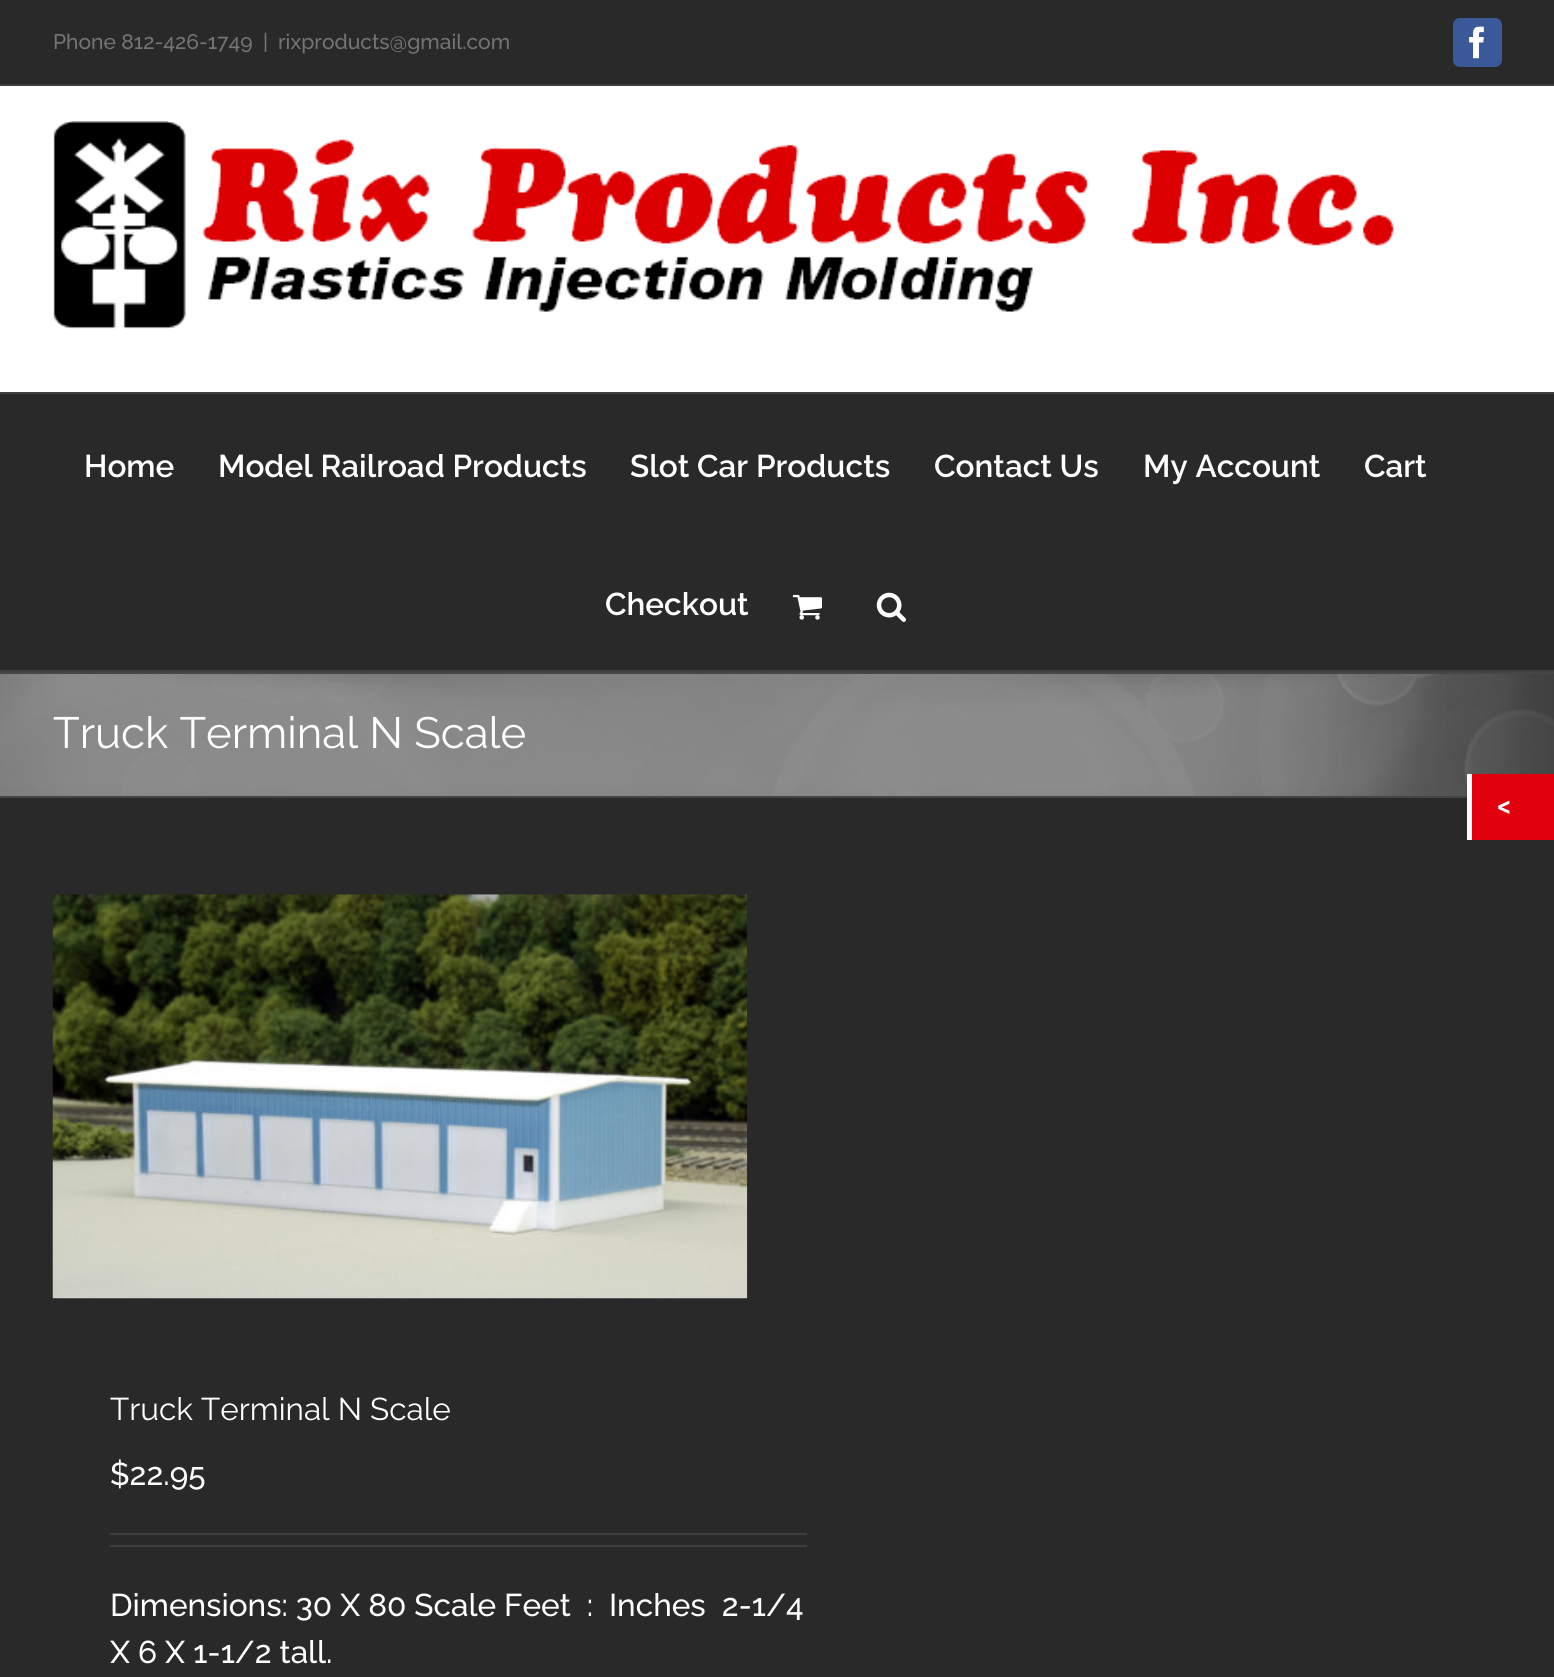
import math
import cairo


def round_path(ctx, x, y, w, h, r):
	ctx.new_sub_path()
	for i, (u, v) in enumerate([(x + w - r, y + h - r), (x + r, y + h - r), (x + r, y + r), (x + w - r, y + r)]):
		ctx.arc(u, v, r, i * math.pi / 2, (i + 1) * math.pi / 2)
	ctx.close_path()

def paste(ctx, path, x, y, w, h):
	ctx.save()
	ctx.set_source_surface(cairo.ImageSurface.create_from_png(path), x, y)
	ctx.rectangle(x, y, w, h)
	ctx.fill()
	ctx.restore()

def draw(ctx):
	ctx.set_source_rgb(0.208, 0.208, 0.208)
	ctx.paint()
	ctx.set_source_rgb(0.161, 0.161, 0.165)
	ctx.rectangle(0, 0, 1554, 84)
	ctx.fill()
	ctx.set_source_rgb(0.243, 0.243, 0.243)
	ctx.rectangle(0, 84, 1554, 2)
	ctx.fill()
	ctx.select_font_face('Raleway Medium')
	ctx.set_font_size(21)
	ctx.set_source_rgb(0.455, 0.455, 0.455)
	for x, y, s in [
		(53, 49, 'Phone 812-426-1749'),
		(263, 49, '|'),
		(278, 49, 'rixproducts@gmail.com'),
	]:
		ctx.move_to(x, y)
		ctx.show_text(s)
	ctx.set_source_rgb(0.231, 0.349, 0.596)
	round_path(ctx, 1454, 19, 47, 47, 6)
	ctx.fill_preserve()
	ctx.stroke()
	paste(ctx, 'media/1.png', 1469, 26, 15, 33)
	ctx.set_source_rgb(1, 1, 1)
	ctx.rectangle(0, 86, 1554, 306)
	ctx.fill()
	ctx.set_source_rgb(0.243, 0.243, 0.243)
	ctx.rectangle(0, 392, 1554, 2)
	ctx.fill()
	paste(ctx, 'media/2.png', 53, 121, 1341, 208)
	ctx.set_source_rgb(0.161, 0.161, 0.165)
	ctx.rectangle(0, 394, 1554, 276)
	ctx.fill()
	ctx.set_source_rgb(0.243, 0.243, 0.243)
	ctx.rectangle(0, 670, 1554, 2)
	ctx.fill()
	ctx.select_font_face('Raleway SemiBold')
	ctx.set_font_size(31.5)
	ctx.set_source_rgb(1, 1, 1)
	for x, y, s in [
		(84, 477, 'Home'),
		(218, 477, 'Model Railroad Products'),
		(630, 477, 'Slot Car Products'),
		(934, 477, 'Contact Us'),
		(1143, 477, 'My Account'),
		(1364, 477, 'Cart'),
		(605, 615, 'Checkout'),
	]:
		ctx.move_to(x, y)
		ctx.show_text(s)
	paste(ctx, 'media/3.png', 792, 594, 30, 26)
	paste(ctx, 'media/4.png', 876, 592, 30, 30)
	paste(ctx, 'media/5.png', 0, 674, 1554, 122)
	ctx.set_source_rgb(0.275, 0.275, 0.275)
	ctx.rectangle(0, 672, 1554, 2)
	ctx.fill()
	ctx.rectangle(0, 796, 1467, 2)
	ctx.fill()
	ctx.select_font_face('Raleway')
	ctx.set_font_size(43.75)
	ctx.set_source_rgb(1, 1, 1)
	ctx.move_to(53, 748)
	ctx.show_text('Truck Terminal N Scale')
	ctx.set_source_rgb(0.161, 0.161, 0.165)
	ctx.rectangle(0, 798, 1554, 879)
	ctx.fill()
	paste(ctx, 'media/6.png', 52, 894, 696, 405)
	ctx.set_font_size(31.5)
	ctx.set_source_rgb(1, 1, 1)
	ctx.move_to(110, 1420)
	ctx.show_text('Truck Terminal N Scale')
	ctx.select_font_face('Raleway Medium')
	ctx.move_to(110, 1485)
	ctx.show_text('$22.95')
	ctx.set_source_rgb(0.243, 0.243, 0.243)
	ctx.rectangle(110, 1533, 697, 2)
	ctx.fill()
	ctx.rectangle(110, 1545, 697, 2)
	ctx.fill()
	ctx.set_source_rgb(1, 1, 1)
	ctx.move_to(110, 1616)
	ctx.show_text('Dimensions: 30 X 80 Scale Feet  :  Inches  2-1/4')
	ctx.move_to(110, 1663)
	ctx.show_text('X 6 X 1-1/2 tall.')
	ctx.set_source_rgb(0.878, 0, 0.055)
	ctx.rectangle(1472, 774, 82, 66)
	ctx.fill()
	ctx.set_source_rgb(1, 1, 1)
	ctx.rectangle(1467, 774, 5, 66)
	ctx.fill()
	ctx.select_font_face('Cabin', cairo.FONT_SLANT_NORMAL, cairo.FONT_WEIGHT_BOLD)
	ctx.move_to(1497, 816)
	ctx.show_text('<')


surface = cairo.ImageSurface(cairo.FORMAT_RGB24, 1554, 1677)
ctx = cairo.Context(surface)
options = cairo.FontOptions()
options.set_hint_metrics(cairo.HINT_METRICS_OFF)
options.set_hint_style(cairo.HINT_STYLE_NONE)
ctx.set_font_options(options)
ctx.set_miter_limit(4)
draw(ctx)
surface.write_to_png('image.png')
